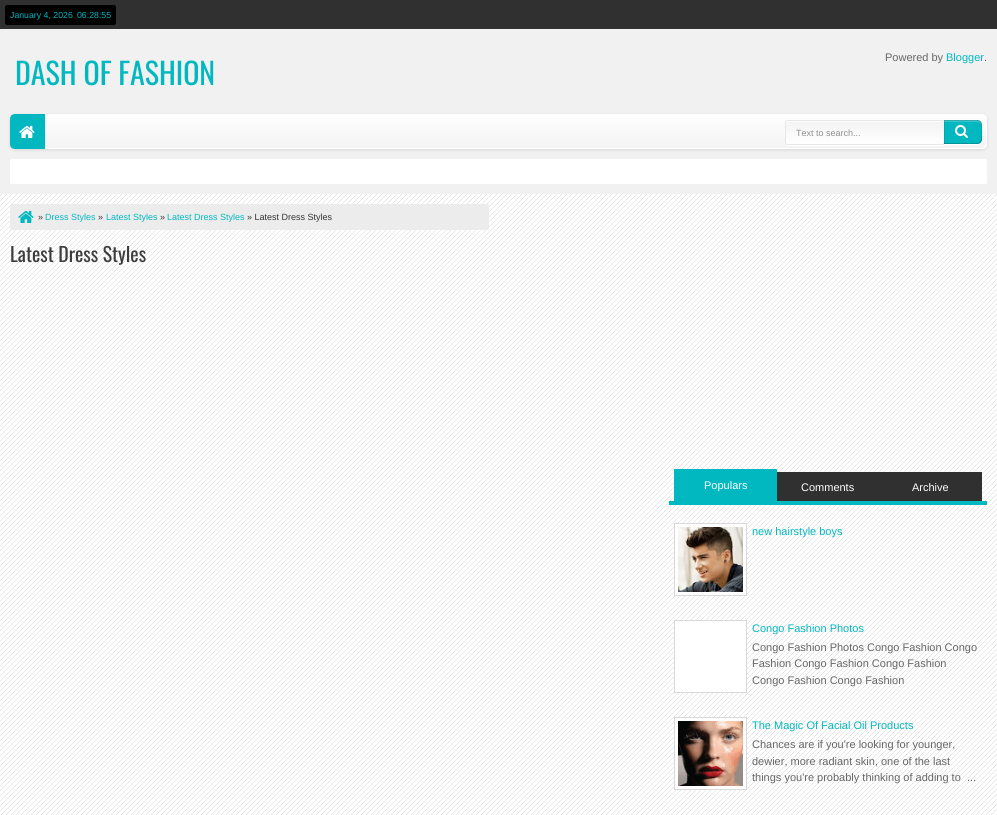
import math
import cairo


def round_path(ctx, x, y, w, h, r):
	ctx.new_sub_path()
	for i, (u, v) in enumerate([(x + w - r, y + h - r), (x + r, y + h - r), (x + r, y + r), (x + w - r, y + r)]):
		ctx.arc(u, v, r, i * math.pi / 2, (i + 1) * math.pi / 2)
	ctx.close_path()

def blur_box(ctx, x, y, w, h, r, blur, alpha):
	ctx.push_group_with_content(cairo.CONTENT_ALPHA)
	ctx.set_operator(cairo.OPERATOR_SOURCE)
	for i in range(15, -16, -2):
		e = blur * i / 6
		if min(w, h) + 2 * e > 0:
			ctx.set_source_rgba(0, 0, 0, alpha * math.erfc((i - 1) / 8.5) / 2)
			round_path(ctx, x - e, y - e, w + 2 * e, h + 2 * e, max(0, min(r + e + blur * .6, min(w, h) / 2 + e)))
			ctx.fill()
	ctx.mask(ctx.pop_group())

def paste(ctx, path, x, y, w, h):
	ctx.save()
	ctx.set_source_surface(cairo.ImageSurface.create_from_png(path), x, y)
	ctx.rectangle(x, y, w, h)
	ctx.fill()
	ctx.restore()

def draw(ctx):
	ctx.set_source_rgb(0.945, 0.945, 0.945)
	ctx.paint()
	ctx.set_source_rgb(0.188, 0.188, 0.188)
	ctx.rectangle(0, 0, 997, 29)
	ctx.fill()
	ctx.set_source_rgb(0, 0, 0)
	round_path(ctx, 5, 5, 111, 20, 2)
	ctx.fill()
	ctx.select_font_face('Liberation Sans')
	ctx.set_font_size(8.75)
	ctx.set_source_rgb(0.004, 0.722, 0.753)
	ctx.move_to(10, 18)
	ctx.show_text('January 4, 2026')
	ctx.move_to(77, 18)
	ctx.show_text('06:28:55')
	ctx.set_font_size(11)
	ctx.set_source_rgb(0.4, 0.4, 0.4)
	ctx.move_to(885, 61)
	ctx.show_text('Powered by')
	ctx.set_source_rgb(0.004, 0.722, 0.753)
	ctx.move_to(946, 61)
	ctx.show_text('Blogger')
	ctx.set_source_rgb(0.4, 0.4, 0.4)
	ctx.move_to(984, 61)
	ctx.show_text('.')
	ctx.select_font_face('Oswald')
	ctx.set_font_size(30)
	ctx.set_source_rgb(0.004, 0.722, 0.753)
	ctx.move_to(15, 85)
	ctx.show_text('DASH OF FASHION')
	ctx.set_source_rgb(0.839, 0.839, 0.839)
	blur_box(ctx, 10, 115, 977, 35, 5, 1.5, 1)
	gradient = cairo.LinearGradient(499, 114, 499, 149)
	gradient.add_color_stop_rgba(0, 1, 1, 1, 1)
	gradient.add_color_stop_rgba(1, 0.953, 0.953, 0.953, 1)
	ctx.set_source(gradient)
	round_path(ctx, 10, 114, 977, 35, 5)
	ctx.fill()
	ctx.set_source_rgb(1, 1, 1)
	ctx.new_path()
	ctx.move_to(11, 147)
	ctx.curve_to(12, 148, 14, 149, 15, 149)
	ctx.line_to(982, 149)
	ctx.curve_to(985, 149, 987, 147, 987, 144)
	ctx.line_to(987, 119)
	ctx.curve_to(987, 118, 986, 116, 985, 115)
	ctx.line_to(986, 118)
	ctx.line_to(986, 143)
	ctx.curve_to(986, 146, 984, 148, 981, 148)
	ctx.line_to(14, 148)
	ctx.close_path()
	ctx.fill()
	ctx.set_source_rgb(0.004, 0.722, 0.753)
	ctx.new_path()
	ctx.move_to(15, 114)
	ctx.line_to(45, 114)
	ctx.line_to(45, 149)
	ctx.line_to(15, 149)
	ctx.curve_to(12, 149, 10, 147, 10, 144)
	ctx.line_to(10, 119)
	ctx.curve_to(10, 116, 12, 114, 15, 114)
	ctx.close_path()
	ctx.fill()
	paste(ctx, 'media/1.png', 19, 125, 16, 13)
	ctx.set_source_rgb(1, 1, 1)
	ctx.new_path()
	ctx.move_to(785, 142)
	ctx.curve_to(785, 144, 786, 146, 788, 146)
	ctx.line_to(943, 146)
	ctx.curve_to(945, 146, 945, 144, 945, 142)
	ctx.curve_to(945, 144, 944, 145, 942, 145)
	ctx.line_to(788, 145)
	ctx.curve_to(786, 145, 785, 144, 785, 142)
	ctx.close_path()
	ctx.fill()
	ctx.save()
	round_path(ctx, 785, 120, 160, 25, 3)
	ctx.clip()
	gradient = cairo.LinearGradient(865, 121, 865, 144)
	gradient.add_color_stop_rgba(0, 0.953, 0.953, 0.953, 1)
	gradient.add_color_stop_rgba(1, 1, 1, 1, 1)
	ctx.set_source(gradient)
	ctx.rectangle(785, 121, 159, 23)
	ctx.fill()
	ctx.restore()
	ctx.new_path()
	ctx.move_to(788, 122)
	ctx.line_to(942, 122)
	ctx.curve_to(943, 122, 944, 123, 944, 124)
	ctx.curve_to(944, 123, 944, 121, 942, 121)
	ctx.line_to(788, 121)
	ctx.curve_to(786, 121, 786, 123, 786, 124)
	ctx.curve_to(786, 123, 787, 122, 788, 122)
	ctx.close_path()
	ctx.fill()
	round_path(ctx, 785.5, 120.5, 159, 24, 2.5)
	ctx.set_source_rgb(0.906, 0.906, 0.906)
	ctx.set_line_width(1)
	ctx.stroke()
	ctx.select_font_face('Liberation Sans')
	ctx.set_font_size(9)
	ctx.set_source_rgb(0.561, 0.561, 0.561)
	ctx.move_to(796, 136)
	ctx.show_text('Text to search...')
	ctx.set_source_rgb(1, 1, 1)
	ctx.new_path()
	ctx.move_to(944, 144)
	ctx.line_to(944, 145)
	ctx.line_to(977, 145)
	ctx.curve_to(980, 145, 982, 143, 982, 140)
	ctx.line_to(982, 139)
	ctx.curve_to(982, 142, 980, 144, 977, 144)
	ctx.close_path()
	ctx.fill()
	ctx.set_source_rgb(0.004, 0.722, 0.753)
	ctx.new_path()
	ctx.move_to(944, 120)
	ctx.line_to(977, 120)
	ctx.curve_to(980, 120, 982, 122, 982, 125)
	ctx.line_to(982, 139)
	ctx.curve_to(982, 142, 980, 144, 977, 144)
	ctx.line_to(944, 144)
	ctx.close_path()
	ctx.fill()
	ctx.set_source_rgb(0.004, 0.651, 0.678)
	ctx.rectangle(944, 120, 1, 24)
	ctx.fill()
	ctx.set_source_rgba(0, 0, 0, 0.1)
	ctx.new_path()
	ctx.move_to(976, 144)
	ctx.curve_to(983.5, 144, 982, 137.5, 982, 132)
	ctx.curve_to(982, 126.5, 983.5, 120, 976, 120)
	ctx.curve_to(980.5, 120.5, 981, 122.5, 981, 132)
	ctx.curve_to(981, 141.5, 980.5, 143.5, 976, 144)
	ctx.close_path()
	ctx.fill()
	ctx.set_source_rgba(0, 0, 0, 0.2)
	ctx.new_path()
	ctx.move_to(944, 143)
	ctx.line_to(944, 144)
	ctx.line_to(977, 144)
	ctx.curve_to(980, 144, 982, 142, 982, 139)
	ctx.line_to(982, 125)
	ctx.line_to(981.5, 123)
	ctx.curve_to(982.5, 127, 982.5, 139.5, 980.5, 141.5)
	ctx.curve_to(979.5, 142.5, 978, 143, 977, 143)
	ctx.close_path()
	ctx.fill()
	ctx.new_path()
	ctx.move_to(944, 121)
	ctx.line_to(977, 121)
	ctx.curve_to(978, 121, 979.5, 121.5, 980.5, 122.5)
	ctx.curve_to(982.5, 124.5, 982.5, 137, 981.5, 141)
	ctx.line_to(982, 139)
	ctx.line_to(982, 125)
	ctx.curve_to(982, 122, 980, 120, 977, 120)
	ctx.line_to(944, 120)
	ctx.close_path()
	ctx.fill()
	ctx.set_source_rgba(1, 1, 1, 0.2)
	ctx.new_path()
	ctx.move_to(944, 122)
	ctx.line_to(977, 122)
	ctx.curve_to(978, 122, 979.5, 122.5, 980.5, 123.5)
	ctx.curve_to(982.5, 125.5, 982, 136, 982, 140.5)
	ctx.line_to(982, 124)
	ctx.curve_to(981, 119, 975, 120, 971.5, 120)
	ctx.line_to(944, 120)
	ctx.close_path()
	ctx.fill()
	paste(ctx, 'media/2.png', 955, 125, 13, 13)
	ctx.set_source_rgb(1, 1, 1)
	round_path(ctx, 10.5, 159.5, 976, 24, 1.5)
	ctx.fill_preserve()
	ctx.stroke()
	paste(ctx, 'media/3.png', 0, 194, 997, 621)
	ctx.set_source_rgb(0.925, 0.925, 0.925)
	round_path(ctx, 10, 204, 479, 26, 2)
	ctx.fill()
	paste(ctx, 'media/4.png', 18, 210, 16, 13)
	ctx.set_source_rgb(0.2, 0.2, 0.2)
	ctx.move_to(38, 220)
	ctx.show_text('»')
	ctx.set_source_rgb(0.004, 0.722, 0.753)
	ctx.move_to(45, 220)
	ctx.show_text('Dress Styles')
	ctx.set_source_rgb(0.2, 0.2, 0.2)
	ctx.move_to(98, 220)
	ctx.show_text('»')
	ctx.set_source_rgb(0.004, 0.722, 0.753)
	ctx.move_to(106, 220)
	ctx.show_text('Latest Styles')
	ctx.set_source_rgb(0.2, 0.2, 0.2)
	ctx.move_to(160, 220)
	ctx.show_text('»')
	ctx.set_source_rgb(0.004, 0.722, 0.753)
	ctx.move_to(167, 220)
	ctx.show_text('Latest Dress Styles')
	ctx.set_source_rgb(0.2, 0.2, 0.2)
	ctx.move_to(247, 220)
	ctx.show_text('» Latest Dress Styles')
	ctx.select_font_face('Oswald')
	ctx.set_font_size(19.75)
	ctx.set_source_rgb(0.239, 0.239, 0.239)
	ctx.move_to(10, 262)
	ctx.show_text('Latest Dress Styles')
	ctx.set_source_rgb(0.004, 0.722, 0.753)
	ctx.rectangle(669, 501, 318, 4)
	ctx.fill()
	ctx.rectangle(674, 469, 103, 32)
	ctx.fill()
	ctx.select_font_face('Liberation Sans')
	ctx.set_font_size(11)
	ctx.set_source_rgb(1, 1, 1)
	ctx.move_to(704, 489)
	ctx.show_text('Populars')
	ctx.set_source_rgb(0.188, 0.188, 0.188)
	ctx.rectangle(777, 472, 205, 29)
	ctx.fill()
	ctx.set_source_rgb(1, 1, 1)
	ctx.move_to(801, 491)
	ctx.show_text('Comments')
	ctx.move_to(912, 491)
	ctx.show_text('Archive')
	ctx.rectangle(674.5, 523.5, 72, 72)
	ctx.fill_preserve()
	ctx.set_source_rgb(0.855, 0.847, 0.847)
	ctx.stroke()
	paste(ctx, 'media/5.png', 678, 527, 65, 65)
	ctx.set_source_rgb(0.004, 0.722, 0.753)
	ctx.move_to(752, 535)
	ctx.show_text('new hairstyle boys')
	ctx.set_source_rgb(1, 1, 1)
	ctx.rectangle(674.5, 620.5, 72, 72)
	ctx.fill_preserve()
	ctx.set_source_rgb(0.855, 0.847, 0.847)
	ctx.stroke()
	ctx.set_source_rgb(0.004, 0.722, 0.753)
	ctx.move_to(752, 632)
	ctx.show_text('Congo Fashion Photos')
	ctx.set_source_rgb(0.4, 0.4, 0.4)
	for x, y, s in [
		(752, 651, 'Congo Fashion Photos Congo Fashion Congo'),
		(752, 667, 'Fashion Congo Fashion Congo Fashion'),
		(752, 684, 'Congo Fashion Congo Fashion'),
	]:
		ctx.move_to(x, y)
		ctx.show_text(s)
	ctx.set_source_rgb(1, 1, 1)
	ctx.rectangle(674.5, 717.5, 72, 72)
	ctx.fill_preserve()
	ctx.set_source_rgb(0.855, 0.847, 0.847)
	ctx.stroke()
	paste(ctx, 'media/6.png', 678, 721, 65, 65)
	ctx.set_source_rgb(0.004, 0.722, 0.753)
	ctx.move_to(752, 729)
	ctx.show_text('The Magic Of Facial Oil Products')
	ctx.set_source_rgb(0.4, 0.4, 0.4)
	for x, y, s in [
		(752, 748, 'Chances are if you\'re looking for younger,'),
		(752, 765, 'dewier, more radiant skin, one of the last'),
		(752, 781, 'things you\'re probably thinking of adding to  ...'),
	]:
		ctx.move_to(x, y)
		ctx.show_text(s)


surface = cairo.ImageSurface(cairo.FORMAT_RGB24, 997, 815)
ctx = cairo.Context(surface)
options = cairo.FontOptions()
options.set_hint_metrics(cairo.HINT_METRICS_OFF)
options.set_hint_style(cairo.HINT_STYLE_NONE)
ctx.set_font_options(options)
ctx.set_miter_limit(4)
draw(ctx)
surface.write_to_png('image.png')
